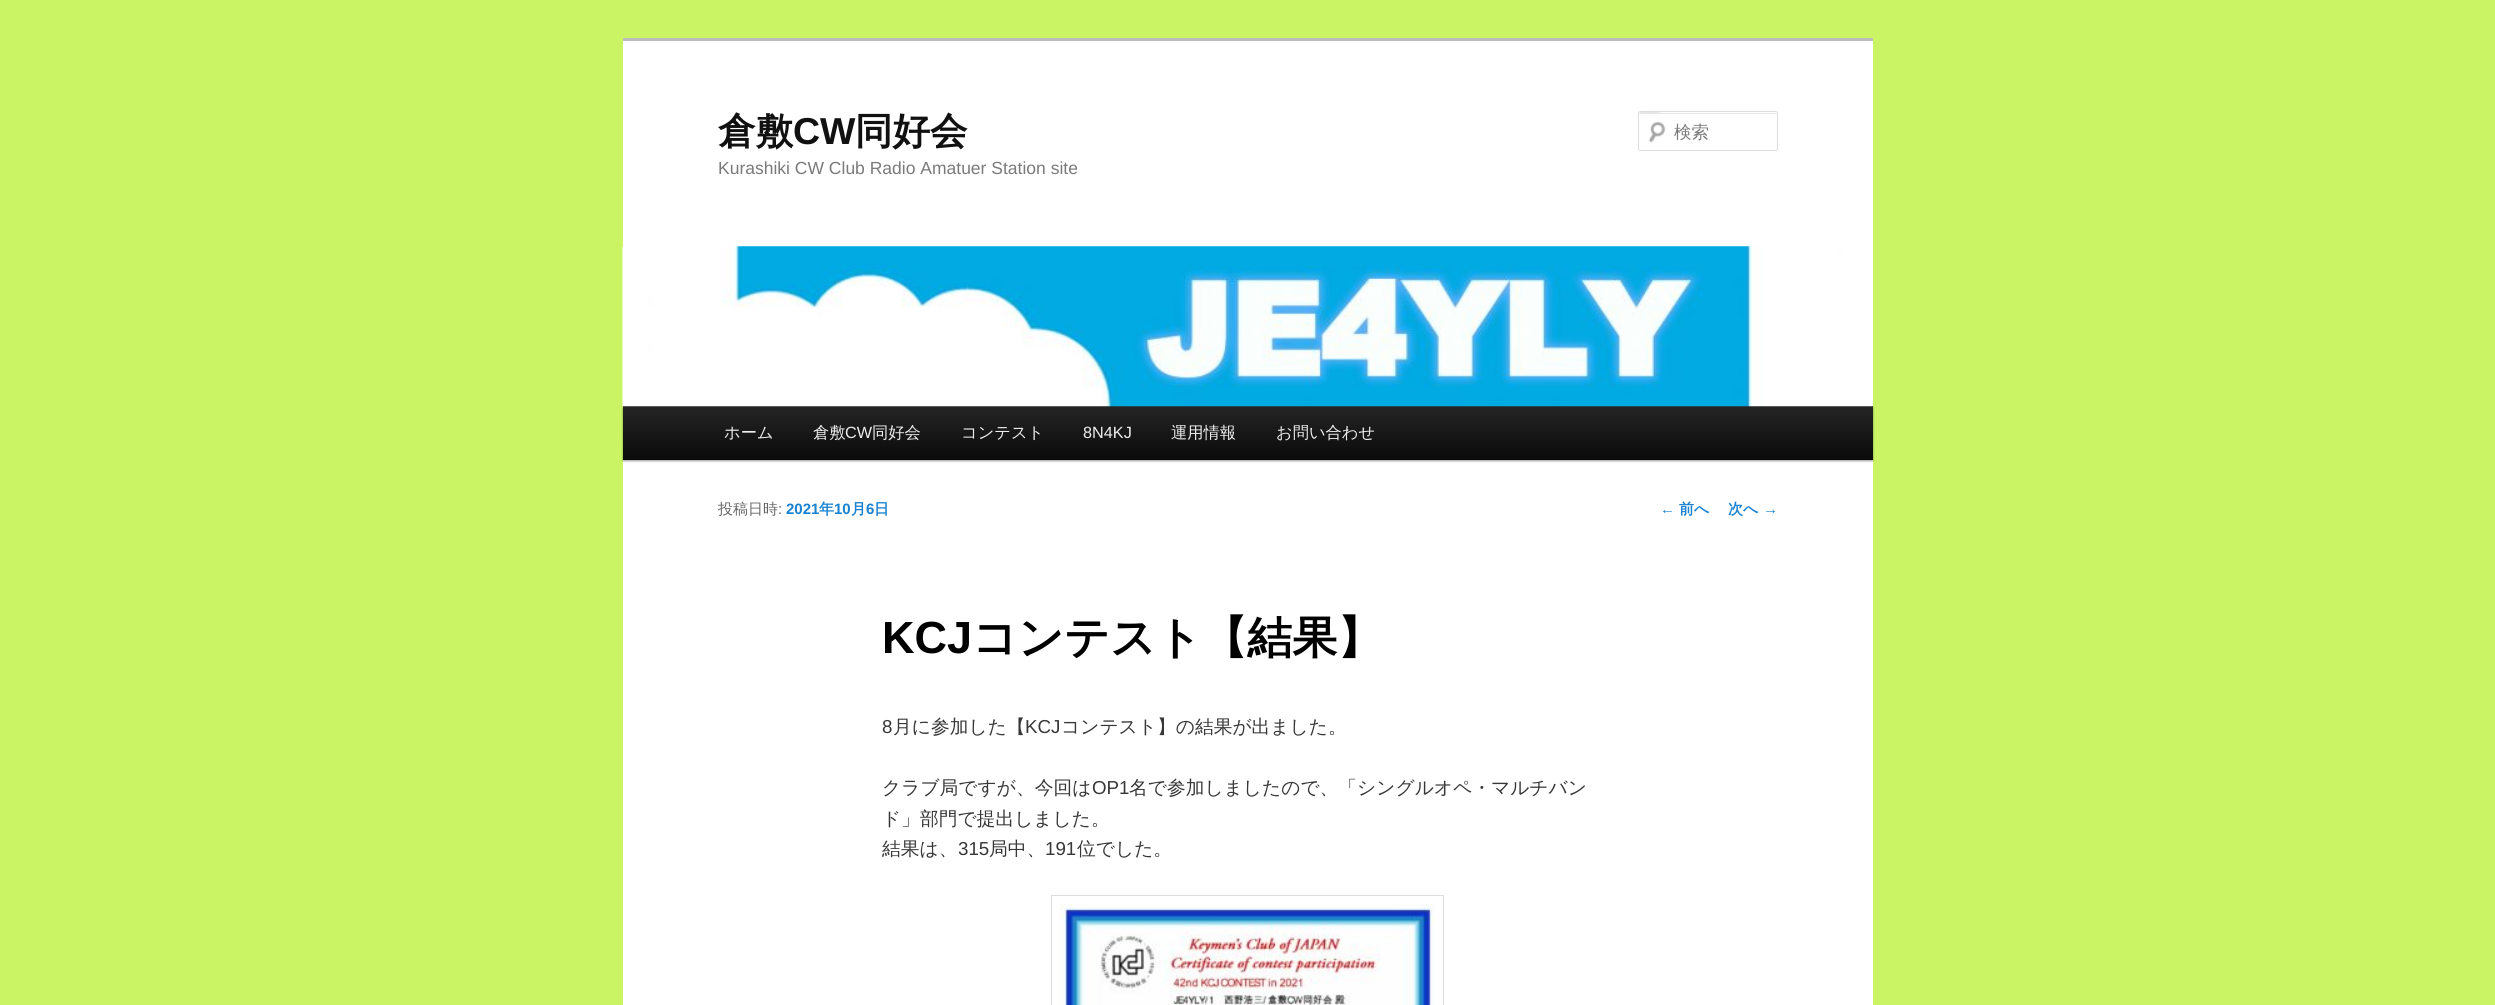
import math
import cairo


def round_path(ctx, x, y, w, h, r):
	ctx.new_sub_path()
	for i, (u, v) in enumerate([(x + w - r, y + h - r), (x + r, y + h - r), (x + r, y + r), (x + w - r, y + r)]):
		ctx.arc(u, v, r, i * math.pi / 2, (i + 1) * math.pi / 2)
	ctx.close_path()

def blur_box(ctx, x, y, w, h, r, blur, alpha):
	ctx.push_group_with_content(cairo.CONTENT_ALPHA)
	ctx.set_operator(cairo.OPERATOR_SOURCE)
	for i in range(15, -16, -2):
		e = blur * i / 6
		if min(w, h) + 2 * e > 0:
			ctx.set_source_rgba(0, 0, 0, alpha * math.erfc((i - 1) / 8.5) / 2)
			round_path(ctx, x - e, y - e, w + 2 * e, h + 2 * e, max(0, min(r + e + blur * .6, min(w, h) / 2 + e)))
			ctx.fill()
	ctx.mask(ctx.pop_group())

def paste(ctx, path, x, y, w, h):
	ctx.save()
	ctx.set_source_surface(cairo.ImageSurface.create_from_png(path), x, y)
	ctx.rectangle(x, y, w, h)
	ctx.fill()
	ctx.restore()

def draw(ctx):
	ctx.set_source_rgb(0.796, 0.957, 0.392)
	ctx.paint()
	ctx.set_source_rgb(1, 1, 1)
	ctx.rectangle(623, 41, 1250, 964)
	ctx.fill()
	ctx.set_source_rgb(0.733, 0.733, 0.733)
	ctx.rectangle(623, 38, 1250, 3)
	ctx.fill()
	ctx.select_font_face('WenQuanYi Zen Hei', cairo.FONT_SLANT_NORMAL, cairo.FONT_WEIGHT_BOLD)
	ctx.set_font_size(37.5)
	ctx.set_source_rgb(0.067, 0.067, 0.067)
	ctx.move_to(718, 144)
	ctx.show_text('倉敷')
	ctx.select_font_face('Liberation Sans', cairo.FONT_SLANT_NORMAL, cairo.FONT_WEIGHT_BOLD)
	ctx.move_to(793, 144)
	ctx.show_text('CW')
	ctx.select_font_face('WenQuanYi Zen Hei', cairo.FONT_SLANT_NORMAL, cairo.FONT_WEIGHT_BOLD)
	ctx.move_to(855, 144)
	ctx.show_text('同好会')
	ctx.select_font_face('Liberation Sans')
	ctx.set_font_size(17.5)
	ctx.set_source_rgb(0.478, 0.478, 0.478)
	ctx.move_to(718, 174)
	ctx.show_text('Kurashiki CW Club Radio Amatuer Station site')
	paste(ctx, 'media/1.png', 1648, 121, 18, 22)
	ctx.set_source_rgb(0.902, 0.902, 0.902)
	ctx.new_path()
	ctx.move_to(1640, 114)
	ctx.line_to(1775, 114)
	ctx.curve_to(1776, 114, 1776, 114, 1776, 115)
	ctx.line_to(1776, 113)
	ctx.line_to(1662, 113)
	ctx.curve_to(1662, 113, 1639, 107, 1639, 115)
	ctx.curve_to(1639, 114, 1639, 114, 1640, 114)
	ctx.close_path()
	ctx.fill()
	round_path(ctx, 1638.5, 111.5, 139, 39, 2)
	ctx.set_source_rgb(0.867, 0.867, 0.867)
	ctx.set_line_width(1)
	ctx.stroke()
	ctx.select_font_face('WenQuanYi Zen Hei Medium')
	ctx.set_source_rgb(0.478, 0.478, 0.478)
	ctx.move_to(1674, 138)
	ctx.show_text('検索')
	ctx.set_source_rgb(0, 0, 0)
	blur_box(ctx, 623, 408, 1250, 53, 0, 1, 0.4)
	gradient = cairo.LinearGradient(1248, 406, 1248, 460)
	gradient.add_color_stop_rgba(0, 0.145, 0.145, 0.145, 1)
	gradient.add_color_stop_rgba(1, 0.039, 0.039, 0.039, 1)
	ctx.set_source(gradient)
	ctx.rectangle(623, 406, 1250, 54)
	ctx.fill()
	paste(ctx, 'media/2.png', 622, 246, 1251, 161)
	ctx.set_font_size(16.25)
	ctx.set_source_rgb(0.933, 0.933, 0.933)
	ctx.move_to(724, 438)
	ctx.show_text('ホーム')
	ctx.move_to(813, 438)
	ctx.show_text('倉敷')
	ctx.select_font_face('Liberation Sans')
	ctx.move_to(845, 438)
	ctx.show_text('CW')
	ctx.select_font_face('WenQuanYi Zen Hei Medium')
	ctx.move_to(872, 438)
	ctx.show_text('同好会')
	ctx.move_to(961, 438)
	ctx.show_text('コンテスト')
	ctx.select_font_face('Liberation Sans')
	ctx.move_to(1083, 438)
	ctx.show_text('8N4KJ')
	ctx.select_font_face('WenQuanYi Zen Hei Medium')
	ctx.move_to(1171, 438)
	ctx.show_text('運用情報')
	ctx.move_to(1276, 438)
	ctx.show_text('お問い合わせ')
	ctx.set_font_size(15)
	ctx.set_source_rgb(0.4, 0.4, 0.4)
	ctx.move_to(718, 514)
	ctx.show_text('投稿日時')
	ctx.select_font_face('Liberation Sans')
	ctx.move_to(778, 514)
	ctx.show_text(':')
	ctx.select_font_face('Liberation Sans', cairo.FONT_SLANT_NORMAL, cairo.FONT_WEIGHT_BOLD)
	ctx.set_source_rgb(0.098, 0.51, 0.82)
	ctx.move_to(786, 514)
	ctx.show_text('2021')
	ctx.select_font_face('WenQuanYi Zen Hei', cairo.FONT_SLANT_NORMAL, cairo.FONT_WEIGHT_BOLD)
	ctx.move_to(819, 514)
	ctx.show_text('年')
	ctx.select_font_face('Liberation Sans', cairo.FONT_SLANT_NORMAL, cairo.FONT_WEIGHT_BOLD)
	ctx.move_to(834, 514)
	ctx.show_text('10')
	ctx.select_font_face('WenQuanYi Zen Hei', cairo.FONT_SLANT_NORMAL, cairo.FONT_WEIGHT_BOLD)
	ctx.move_to(851, 514)
	ctx.show_text('月')
	ctx.select_font_face('Liberation Sans', cairo.FONT_SLANT_NORMAL, cairo.FONT_WEIGHT_BOLD)
	ctx.move_to(866, 514)
	ctx.show_text('6')
	ctx.select_font_face('WenQuanYi Zen Hei', cairo.FONT_SLANT_NORMAL, cairo.FONT_WEIGHT_BOLD)
	ctx.move_to(874, 514)
	ctx.show_text('日')
	ctx.select_font_face('Liberation Sans', cairo.FONT_SLANT_NORMAL, cairo.FONT_WEIGHT_BOLD)
	ctx.set_font_size(45)
	ctx.set_source_rgb(0, 0, 0)
	ctx.move_to(882, 653)
	ctx.show_text('KCJ')
	ctx.select_font_face('WenQuanYi Zen Hei', cairo.FONT_SLANT_NORMAL, cairo.FONT_WEIGHT_BOLD)
	ctx.move_to(972, 653)
	ctx.show_text('コンテスト【結果】')
	ctx.select_font_face('Liberation Sans')
	ctx.set_font_size(18.75)
	ctx.set_source_rgb(0.216, 0.216, 0.216)
	ctx.move_to(882, 733)
	ctx.show_text('8')
	ctx.select_font_face('WenQuanYi Zen Hei Medium')
	ctx.move_to(893, 733)
	ctx.show_text('月に参加した【')
	ctx.select_font_face('Liberation Sans')
	ctx.move_to(1025, 733)
	ctx.show_text('KCJ')
	ctx.select_font_face('WenQuanYi Zen Hei Medium')
	ctx.move_to(1061, 733)
	ctx.show_text('コンテスト】の結果が出ました。')
	ctx.move_to(882, 794)
	ctx.show_text('クラブ局ですが、今回は')
	ctx.select_font_face('Liberation Sans')
	ctx.move_to(1092, 794)
	ctx.show_text('OP1')
	ctx.select_font_face('WenQuanYi Zen Hei Medium')
	for x, y, s in [
		(1129, 794, '名で参加しましたので、「シングルオペ・マルチバン'),
		(882, 825, 'ド」部門で提出しました。'),
		(882, 855, '結果は、'),
	]:
		ctx.move_to(x, y)
		ctx.show_text(s)
	ctx.select_font_face('Liberation Sans')
	ctx.move_to(958, 855)
	ctx.show_text('315')
	ctx.select_font_face('WenQuanYi Zen Hei Medium')
	ctx.move_to(989, 855)
	ctx.show_text('局中、')
	ctx.select_font_face('Liberation Sans')
	ctx.move_to(1045, 855)
	ctx.show_text('191')
	ctx.select_font_face('WenQuanYi Zen Hei Medium')
	ctx.move_to(1077, 855)
	ctx.show_text('位でした。')
	ctx.rectangle(1051.5, 895.5, 392, 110)
	ctx.set_source_rgb(0.867, 0.867, 0.867)
	ctx.stroke()
	paste(ctx, 'media/3.png', 1060, 903, 375, 102)
	ctx.select_font_face('Liberation Sans')
	ctx.set_font_size(15)
	ctx.set_source_rgb(0.098, 0.51, 0.82)
	ctx.move_to(1660, 514)
	ctx.show_text('←')
	ctx.select_font_face('WenQuanYi Zen Hei', cairo.FONT_SLANT_NORMAL, cairo.FONT_WEIGHT_BOLD)
	ctx.move_to(1679, 514)
	ctx.show_text('前へ')
	ctx.move_to(1728, 514)
	ctx.show_text('次へ')
	ctx.select_font_face('Liberation Sans')
	ctx.move_to(1763, 514)
	ctx.show_text('→')


surface = cairo.ImageSurface(cairo.FORMAT_RGB24, 2495, 1005)
ctx = cairo.Context(surface)
options = cairo.FontOptions()
options.set_hint_metrics(cairo.HINT_METRICS_OFF)
options.set_hint_style(cairo.HINT_STYLE_NONE)
ctx.set_font_options(options)
ctx.set_miter_limit(4)
draw(ctx)
surface.write_to_png('image.png')
